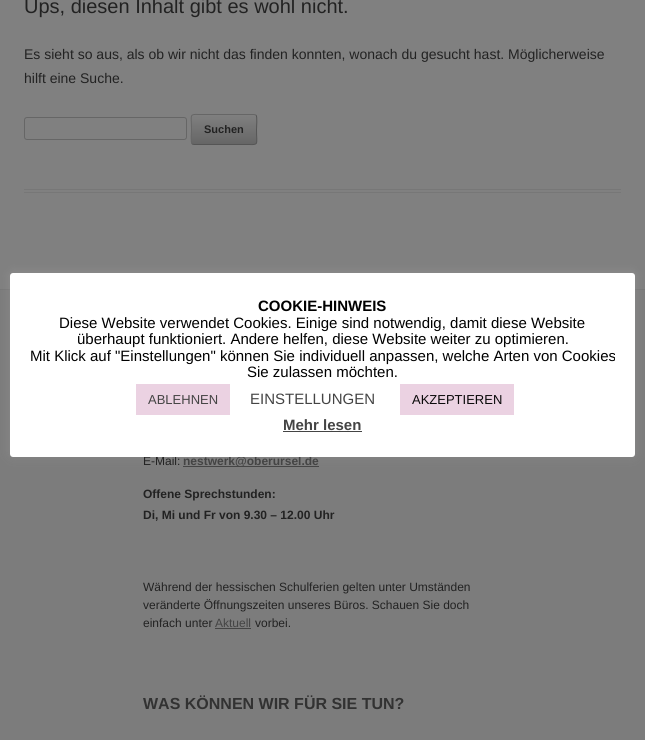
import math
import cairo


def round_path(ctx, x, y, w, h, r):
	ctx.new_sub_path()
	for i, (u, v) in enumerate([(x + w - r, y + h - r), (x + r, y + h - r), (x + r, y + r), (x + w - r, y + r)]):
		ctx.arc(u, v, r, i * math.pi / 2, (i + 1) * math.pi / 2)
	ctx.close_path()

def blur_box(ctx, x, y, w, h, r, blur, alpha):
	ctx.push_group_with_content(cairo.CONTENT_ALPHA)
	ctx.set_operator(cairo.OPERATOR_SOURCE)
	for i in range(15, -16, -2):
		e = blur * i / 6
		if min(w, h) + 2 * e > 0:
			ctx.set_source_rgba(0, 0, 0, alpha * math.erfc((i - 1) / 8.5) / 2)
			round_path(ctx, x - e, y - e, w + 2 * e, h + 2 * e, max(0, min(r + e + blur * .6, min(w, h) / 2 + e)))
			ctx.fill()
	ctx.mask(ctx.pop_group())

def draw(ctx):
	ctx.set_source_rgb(0.502, 0.502, 0.502)
	ctx.paint()
	ctx.set_source_rgb(0.467, 0.467, 0.467)
	ctx.rectangle(24, 189, 597, 1)
	ctx.fill()
	ctx.rectangle(24, 192, 597, 1)
	ctx.fill()
	ctx.select_font_face('Liberation Sans')
	ctx.set_font_size(20)
	ctx.set_source_rgb(0.133, 0.133, 0.133)
	ctx.move_to(24, 13)
	ctx.show_text('Ups, diesen Inhalt gibt es wohl nicht.')
	ctx.set_font_size(14)
	ctx.move_to(24, 59)
	ctx.show_text('Es sieht so aus, als ob wir nicht das finden konnten, wonach du gesucht hast. Möglicherweise')
	ctx.move_to(24, 83)
	ctx.show_text('hilft eine Suche.')
	round_path(ctx, 24.5, 117.5, 162, 22, 2.5)
	ctx.set_source_rgb(0.4, 0.4, 0.4)
	ctx.set_line_width(1)
	ctx.stroke()
	ctx.save()
	round_path(ctx, 191, 114, 66, 31, 3)
	ctx.clip()
	gradient = cairo.LinearGradient(224, 115, 224, 144)
	gradient.add_color_stop_rgba(0, 0.502, 0.502, 0.502, 0.2)
	gradient.add_color_stop_rgba(1, 0, 0, 0, 0.2)
	ctx.set_source(gradient)
	ctx.rectangle(191, 115, 66, 29)
	ctx.fill()
	ctx.restore()
	ctx.new_path()
	ctx.move_to(256, 115)
	ctx.curve_to(257.5, 117, 256.5, 127, 256.5, 129.5)
	ctx.curve_to(256.5, 146.5, 260, 144.5, 244, 144.5)
	ctx.line_to(194, 144.5)
	ctx.line_to(192, 144)
	ctx.set_source_rgb(0.333, 0.333, 0.333)
	ctx.stroke()
	ctx.new_path()
	ctx.move_to(192, 144)
	ctx.curve_to(190.5, 142, 191.5, 132, 191.5, 129.5)
	ctx.curve_to(191.5, 112.5, 188, 114.5, 204, 114.5)
	ctx.line_to(254, 114.5)
	ctx.line_to(256, 115)
	ctx.set_source_rgb(0.4, 0.4, 0.4)
	ctx.stroke()
	ctx.select_font_face('Liberation Sans', cairo.FONT_SLANT_NORMAL, cairo.FONT_WEIGHT_BOLD)
	ctx.set_font_size(11)
	ctx.set_source_rgb(0.133, 0.133, 0.133)
	ctx.move_to(204, 133)
	ctx.show_text('Suchen')
	ctx.set_source_rgb(0.486, 0.486, 0.486)
	ctx.rectangle(0, 290, 645, 450)
	ctx.fill()
	ctx.set_source_rgb(0.467, 0.467, 0.467)
	ctx.rectangle(0, 289, 645, 1)
	ctx.fill()
	ctx.set_source_rgb(0.267, 0.267, 0.267)
	ctx.rectangle(183, 466, 136, 1)
	ctx.fill()
	ctx.set_source_rgb(0.675, 0.671, 0.671)
	blur_box(ctx, 10, 272, 625, 184, 3, 5, 0.3)
	ctx.select_font_face('Liberation Sans')
	ctx.set_font_size(12)
	ctx.set_source_rgb(0.133, 0.133, 0.133)
	ctx.move_to(143, 465)
	ctx.show_text('E-Mail:')
	ctx.select_font_face('Liberation Sans', cairo.FONT_SLANT_NORMAL, cairo.FONT_WEIGHT_BOLD)
	ctx.set_source_rgb(0.267, 0.267, 0.267)
	ctx.move_to(183, 465)
	ctx.show_text('nestwerk@oberursel.de')
	ctx.set_source_rgb(1, 1, 1)
	round_path(ctx, 10, 273, 625, 184, 3)
	ctx.fill()
	ctx.set_font_size(15)
	ctx.set_source_rgb(0, 0, 0)
	ctx.move_to(258, 311)
	ctx.show_text('COOKIE-HINWEIS')
	ctx.select_font_face('Liberation Sans')
	for x, y, s in [
		(59, 328, 'Diese Website verwendet Cookies. Einige sind notwendig, damit diese Website'),
		(77, 344, 'überhaupt funktioniert. Andere helfen, diese Website weiter zu optimieren.'),
		(30, 361, 'Mit Klick auf "Einstellungen" können Sie individuell anpassen, welche Arten von Cookies'),
		(247, 377, 'Sie zulassen möchten.'),
	]:
		ctx.move_to(x, y)
		ctx.show_text(s)
	ctx.set_source_rgb(0.918, 0.824, 0.886)
	ctx.rectangle(136, 384, 94, 31)
	ctx.fill()
	ctx.set_font_size(13)
	ctx.set_source_rgb(0.267, 0.267, 0.267)
	ctx.move_to(148, 404)
	ctx.show_text('ABLEHNEN')
	ctx.set_font_size(15)
	ctx.move_to(250, 404)
	ctx.show_text('EINSTELLUNGEN')
	ctx.set_source_rgb(0.918, 0.824, 0.886)
	ctx.rectangle(400, 384, 114, 31)
	ctx.fill()
	ctx.set_font_size(13)
	ctx.set_source_rgb(0.039, 0.039, 0.039)
	ctx.move_to(412, 404)
	ctx.show_text('AKZEPTIEREN')
	ctx.select_font_face('Liberation Sans', cairo.FONT_SLANT_NORMAL, cairo.FONT_WEIGHT_BOLD)
	ctx.set_font_size(15)
	ctx.set_source_rgb(0.267, 0.267, 0.267)
	ctx.move_to(283, 430)
	ctx.show_text('Mehr lesen')
	ctx.rectangle(283, 431, 79, 1)
	ctx.fill()
	ctx.set_font_size(12)
	ctx.set_source_rgb(0.133, 0.133, 0.133)
	ctx.move_to(143, 498)
	ctx.show_text('Offene Sprechstunden:')
	ctx.move_to(143, 519)
	ctx.show_text('Di, Mi und Fr von 9.30 – 12.00 Uhr')
	ctx.select_font_face('Liberation Sans')
	for x, y, s in [
		(143, 591, 'Während der hessischen Schulferien gelten unter Umständen'),
		(143, 609, 'veränderte Öffnungszeiten unseres Büros. Schauen Sie doch'),
		(143, 627, 'einfach unter'),
	]:
		ctx.move_to(x, y)
		ctx.show_text(s)
	ctx.set_source_rgb(0.267, 0.267, 0.267)
	ctx.move_to(215, 627)
	ctx.show_text('Aktuell')
	ctx.rectangle(215, 628, 36, 1)
	ctx.fill()
	ctx.set_source_rgb(0.133, 0.133, 0.133)
	ctx.move_to(255, 627)
	ctx.show_text('vorbei.')
	ctx.select_font_face('Liberation Sans', cairo.FONT_SLANT_NORMAL, cairo.FONT_WEIGHT_BOLD)
	ctx.set_font_size(16)
	ctx.set_source_rgb(0.196, 0.196, 0.196)
	ctx.move_to(143, 709)
	ctx.show_text('WAS KÖNNEN WIR FÜR SIE TUN?')


surface = cairo.ImageSurface(cairo.FORMAT_RGB24, 645, 740)
ctx = cairo.Context(surface)
options = cairo.FontOptions()
options.set_hint_metrics(cairo.HINT_METRICS_OFF)
options.set_hint_style(cairo.HINT_STYLE_NONE)
ctx.set_font_options(options)
ctx.set_miter_limit(4)
draw(ctx)
surface.write_to_png('image.png')
